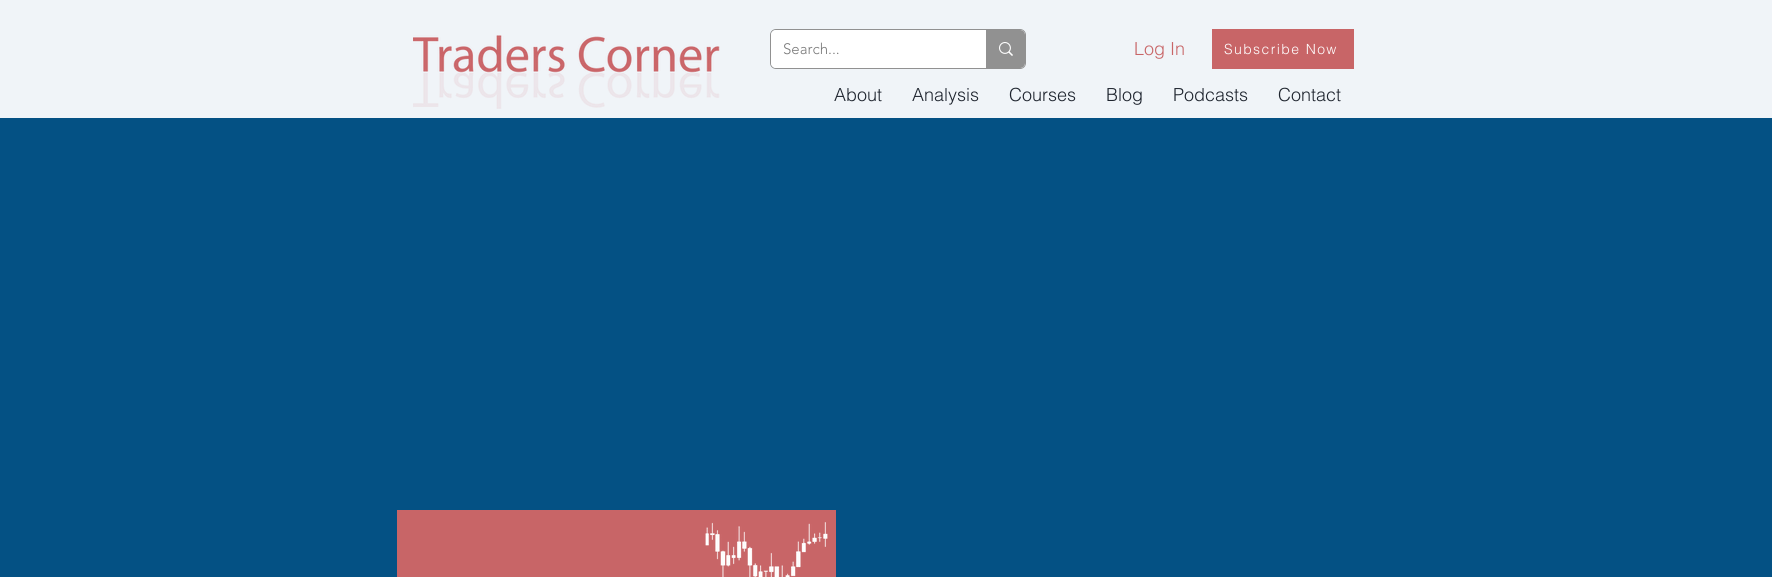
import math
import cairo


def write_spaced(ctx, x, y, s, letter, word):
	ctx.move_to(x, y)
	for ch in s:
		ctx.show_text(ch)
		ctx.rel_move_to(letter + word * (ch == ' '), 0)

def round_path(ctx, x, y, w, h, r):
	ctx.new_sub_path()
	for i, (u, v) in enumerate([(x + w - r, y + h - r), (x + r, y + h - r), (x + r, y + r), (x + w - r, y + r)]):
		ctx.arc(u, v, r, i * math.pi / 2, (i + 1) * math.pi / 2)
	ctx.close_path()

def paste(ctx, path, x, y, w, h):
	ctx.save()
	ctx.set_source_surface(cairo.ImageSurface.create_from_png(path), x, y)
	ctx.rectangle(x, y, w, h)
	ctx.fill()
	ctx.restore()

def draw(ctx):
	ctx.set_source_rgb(0.016, 0.318, 0.518)
	ctx.paint()
	ctx.set_source_rgb(0.941, 0.957, 0.969)
	ctx.rectangle(0, 0, 1772, 118)
	ctx.fill()
	paste(ctx, 'media/1.png', 413, 35, 307, 74)
	round_path(ctx, 770.5, 29.5, 255, 39, 5.5)
	ctx.set_source_rgb(0.569, 0.569, 0.569)
	ctx.set_line_width(1)
	ctx.stroke()
	ctx.set_source_rgb(1, 1, 1)
	round_path(ctx, 771, 30, 254, 38, 5)
	ctx.fill()
	ctx.select_font_face('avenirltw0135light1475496 Light')
	ctx.set_font_size(15)
	ctx.set_source_rgb(0.471, 0.471, 0.471)
	ctx.move_to(783, 54)
	ctx.show_text('Search...')
	ctx.set_source_rgb(0.569, 0.569, 0.569)
	ctx.new_path()
	ctx.move_to(986, 30)
	ctx.line_to(1020, 30)
	ctx.curve_to(1023, 30, 1025, 32, 1025, 35)
	ctx.line_to(1025, 63)
	ctx.curve_to(1025, 66, 1023, 68, 1020, 68)
	ctx.line_to(986, 68)
	ctx.close_path()
	ctx.fill()
	paste(ctx, 'media/2.png', 999, 42, 14, 14)
	ctx.select_font_face('helvetica Light')
	ctx.set_font_size(18)
	ctx.set_source_rgb(0.784, 0.396, 0.404)
	ctx.move_to(1134, 55)
	ctx.show_text('Log In')
	ctx.rectangle(1212, 29, 142, 40)
	ctx.fill()
	ctx.set_font_size(14)
	ctx.set_source_rgb(1, 1, 1)
	write_spaced(ctx, 1224, 54, 'Subscribe Now', 1.4, 0)
	ctx.set_font_size(18)
	ctx.set_source_rgb(0.118, 0.141, 0.18)
	for x, y, s in [
		(834, 101, 'About'),
		(912, 101, 'Analysis'),
		(1009, 101, 'Courses'),
		(1106, 101, 'Blog'),
		(1173, 101, 'Podcasts'),
		(1278, 101, 'Contact'),
	]:
		ctx.move_to(x, y)
		ctx.show_text(s)
	ctx.set_source_rgb(0.784, 0.396, 0.404)
	ctx.rectangle(397, 510, 439, 67)
	ctx.fill()
	paste(ctx, 'media/3.png', 705, 522, 123, 55)


surface = cairo.ImageSurface(cairo.FORMAT_RGB24, 1772, 577)
ctx = cairo.Context(surface)
options = cairo.FontOptions()
options.set_hint_metrics(cairo.HINT_METRICS_OFF)
options.set_hint_style(cairo.HINT_STYLE_NONE)
ctx.set_font_options(options)
ctx.set_miter_limit(4)
draw(ctx)
surface.write_to_png('image.png')
